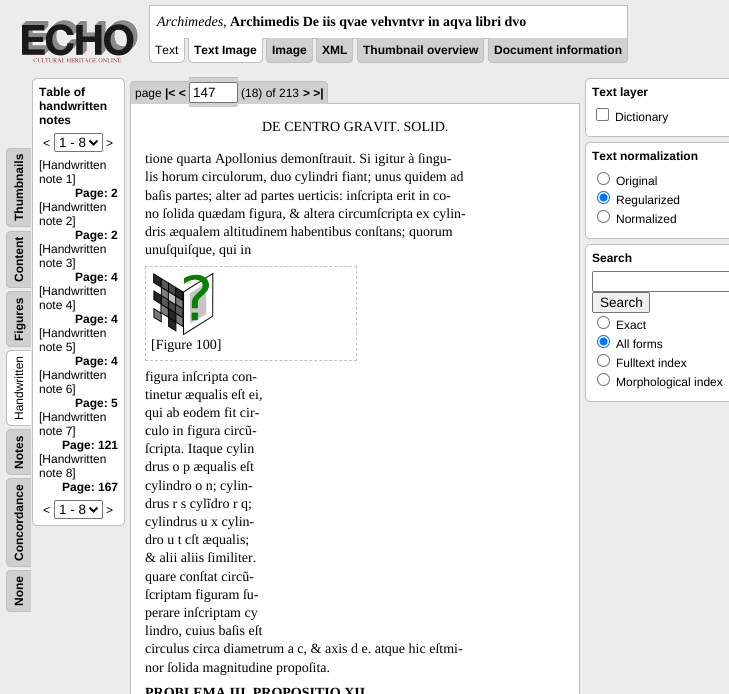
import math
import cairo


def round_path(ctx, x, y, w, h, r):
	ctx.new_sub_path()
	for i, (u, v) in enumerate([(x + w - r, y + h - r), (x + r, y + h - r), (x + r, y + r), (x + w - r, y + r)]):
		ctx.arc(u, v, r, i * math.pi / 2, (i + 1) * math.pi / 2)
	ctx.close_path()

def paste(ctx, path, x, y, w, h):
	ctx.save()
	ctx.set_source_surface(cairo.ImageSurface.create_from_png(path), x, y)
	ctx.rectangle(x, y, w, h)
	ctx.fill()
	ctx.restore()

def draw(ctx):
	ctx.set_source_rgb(0.922, 0.922, 0.922)
	ctx.paint()
	paste(ctx, 'media/1.png', 22, 20, 116, 43)
	ctx.set_source_rgb(1, 1, 1)
	ctx.rectangle(149.5, 5.5, 478, 33)
	ctx.fill_preserve()
	ctx.set_source_rgb(0.753, 0.753, 0.753)
	ctx.set_line_width(1)
	ctx.stroke()
	ctx.select_font_face('Liberation Serif', cairo.FONT_SLANT_ITALIC)
	ctx.set_font_size(14)
	ctx.set_source_rgb(0, 0, 0)
	ctx.move_to(157, 26)
	ctx.show_text('Archimedes')
	ctx.select_font_face('Liberation Serif')
	ctx.move_to(223, 26)
	ctx.show_text(',')
	ctx.select_font_face('Liberation Serif', cairo.FONT_SLANT_NORMAL, cairo.FONT_WEIGHT_BOLD)
	ctx.move_to(230, 26)
	ctx.show_text('Archimedis De iis qvae vehvntvr in aqva libri dvo')
	ctx.set_source_rgb(1, 1, 1)
	ctx.new_path()
	ctx.move_to(149, 38)
	ctx.line_to(185, 38)
	ctx.line_to(185, 58)
	ctx.curve_to(185, 61, 183, 63, 180, 63)
	ctx.line_to(154, 63)
	ctx.curve_to(151, 63, 149, 61, 149, 58)
	ctx.close_path()
	ctx.fill()
	ctx.set_source_rgb(0.753, 0.753, 0.753)
	ctx.set_fill_rule(cairo.FILL_RULE_EVEN_ODD)
	ctx.new_path()
	ctx.move_to(149, 38)
	ctx.line_to(185, 38)
	ctx.line_to(185, 58)
	ctx.curve_to(185, 61, 183, 63, 180, 63)
	ctx.line_to(154, 63)
	ctx.curve_to(151, 63, 149, 61, 149, 58)
	ctx.close_path()
	ctx.move_to(150, 38)
	ctx.line_to(184, 38)
	ctx.line_to(184, 58)
	ctx.curve_to(184, 60, 182, 62, 180, 62)
	ctx.line_to(154, 62)
	ctx.curve_to(152, 62, 150, 60, 150, 58)
	ctx.close_path()
	ctx.fill()
	ctx.select_font_face('Liberation Sans')
	ctx.set_font_size(12)
	ctx.set_source_rgb(0, 0, 0)
	ctx.move_to(155, 54)
	ctx.show_text('Text')
	ctx.set_source_rgb(1, 1, 1)
	ctx.new_path()
	ctx.move_to(188, 38)
	ctx.line_to(263, 38)
	ctx.line_to(263, 58)
	ctx.curve_to(263, 61, 261, 63, 258, 63)
	ctx.line_to(193, 63)
	ctx.curve_to(190, 63, 188, 61, 188, 58)
	ctx.close_path()
	ctx.fill()
	ctx.set_source_rgb(0.753, 0.753, 0.753)
	ctx.new_path()
	ctx.move_to(188, 38)
	ctx.line_to(263, 38)
	ctx.line_to(263, 58)
	ctx.curve_to(263, 61, 261, 63, 258, 63)
	ctx.line_to(193, 63)
	ctx.curve_to(190, 63, 188, 61, 188, 58)
	ctx.close_path()
	ctx.move_to(189, 38)
	ctx.line_to(262, 38)
	ctx.line_to(262, 58)
	ctx.curve_to(262, 60, 260, 62, 258, 62)
	ctx.line_to(193, 62)
	ctx.curve_to(191, 62, 189, 60, 189, 58)
	ctx.close_path()
	ctx.fill()
	ctx.select_font_face('Liberation Sans', cairo.FONT_SLANT_NORMAL, cairo.FONT_WEIGHT_BOLD)
	ctx.set_source_rgb(0, 0, 0)
	ctx.move_to(194, 54)
	ctx.show_text('Text Image')
	ctx.set_source_rgb(0.816, 0.816, 0.816)
	ctx.new_path()
	ctx.move_to(266, 38)
	ctx.line_to(313, 38)
	ctx.line_to(313, 58)
	ctx.curve_to(313, 61, 311, 63, 308, 63)
	ctx.line_to(271, 63)
	ctx.curve_to(268, 63, 266, 61, 266, 58)
	ctx.close_path()
	ctx.fill()
	ctx.set_source_rgb(0.753, 0.753, 0.753)
	ctx.new_path()
	ctx.move_to(266, 38)
	ctx.line_to(313, 38)
	ctx.line_to(313, 58)
	ctx.curve_to(313, 61, 311, 63, 308, 63)
	ctx.line_to(271, 63)
	ctx.curve_to(268, 63, 266, 61, 266, 58)
	ctx.close_path()
	ctx.move_to(267, 38)
	ctx.line_to(312, 38)
	ctx.line_to(312, 58)
	ctx.curve_to(312, 60, 310, 62, 308, 62)
	ctx.line_to(271, 62)
	ctx.curve_to(269, 62, 267, 60, 267, 58)
	ctx.close_path()
	ctx.fill()
	ctx.set_source_rgb(0, 0, 0)
	ctx.move_to(272, 54)
	ctx.show_text('Image')
	ctx.set_source_rgb(0.816, 0.816, 0.816)
	ctx.new_path()
	ctx.move_to(316, 38)
	ctx.line_to(353, 38)
	ctx.line_to(353, 58)
	ctx.curve_to(353, 61, 351, 63, 348, 63)
	ctx.line_to(321, 63)
	ctx.curve_to(318, 63, 316, 61, 316, 58)
	ctx.close_path()
	ctx.fill()
	ctx.set_source_rgb(0.753, 0.753, 0.753)
	ctx.new_path()
	ctx.move_to(316, 38)
	ctx.line_to(353, 38)
	ctx.line_to(353, 58)
	ctx.curve_to(353, 61, 351, 63, 348, 63)
	ctx.line_to(321, 63)
	ctx.curve_to(318, 63, 316, 61, 316, 58)
	ctx.close_path()
	ctx.move_to(317, 38)
	ctx.line_to(352, 38)
	ctx.line_to(352, 58)
	ctx.curve_to(352, 60, 350, 62, 348, 62)
	ctx.line_to(321, 62)
	ctx.curve_to(319, 62, 317, 60, 317, 58)
	ctx.close_path()
	ctx.fill()
	ctx.set_source_rgb(0, 0, 0)
	ctx.move_to(322, 54)
	ctx.show_text('XML')
	ctx.set_source_rgb(0.816, 0.816, 0.816)
	ctx.new_path()
	ctx.move_to(357, 38)
	ctx.line_to(484, 38)
	ctx.line_to(484, 58)
	ctx.curve_to(484, 61, 482, 63, 479, 63)
	ctx.line_to(362, 63)
	ctx.curve_to(359, 63, 357, 61, 357, 58)
	ctx.close_path()
	ctx.fill()
	ctx.set_source_rgb(0.753, 0.753, 0.753)
	ctx.new_path()
	ctx.move_to(357, 38)
	ctx.line_to(484, 38)
	ctx.line_to(484, 58)
	ctx.curve_to(484, 61, 482, 63, 479, 63)
	ctx.line_to(362, 63)
	ctx.curve_to(359, 63, 357, 61, 357, 58)
	ctx.close_path()
	ctx.move_to(358, 38)
	ctx.line_to(483, 38)
	ctx.line_to(483, 58)
	ctx.curve_to(483, 60, 481, 62, 479, 62)
	ctx.line_to(362, 62)
	ctx.curve_to(360, 62, 358, 60, 358, 58)
	ctx.close_path()
	ctx.fill()
	ctx.set_source_rgb(0, 0, 0)
	ctx.move_to(363, 54)
	ctx.show_text('Thumbnail overview')
	ctx.set_source_rgb(0.816, 0.816, 0.816)
	ctx.new_path()
	ctx.move_to(488, 38)
	ctx.line_to(628, 38)
	ctx.line_to(628, 58)
	ctx.curve_to(628, 61, 626, 63, 623, 63)
	ctx.line_to(493, 63)
	ctx.curve_to(490, 63, 488, 61, 488, 58)
	ctx.close_path()
	ctx.fill()
	ctx.set_source_rgb(0.753, 0.753, 0.753)
	ctx.new_path()
	ctx.move_to(488, 38)
	ctx.line_to(628, 38)
	ctx.line_to(628, 58)
	ctx.curve_to(628, 61, 626, 63, 623, 63)
	ctx.line_to(493, 63)
	ctx.curve_to(490, 63, 488, 61, 488, 58)
	ctx.close_path()
	ctx.move_to(489, 38)
	ctx.line_to(627, 38)
	ctx.line_to(627, 58)
	ctx.curve_to(627, 60, 625, 62, 623, 62)
	ctx.line_to(493, 62)
	ctx.curve_to(491, 62, 489, 60, 489, 58)
	ctx.close_path()
	ctx.fill()
	ctx.set_source_rgb(0, 0, 0)
	ctx.move_to(494, 54)
	ctx.show_text('Document information')
	ctx.set_source_rgb(0.816, 0.816, 0.816)
	ctx.set_fill_rule(cairo.FILL_RULE_WINDING)
	ctx.new_path()
	ctx.move_to(6, 222)
	ctx.line_to(6, 153)
	ctx.curve_to(6, 150, 8, 148, 11, 148)
	ctx.line_to(31, 148)
	ctx.line_to(31, 227)
	ctx.line_to(11, 227)
	ctx.curve_to(8, 227, 6, 225, 6, 222)
	ctx.close_path()
	ctx.fill()
	ctx.set_source_rgb(0.753, 0.753, 0.753)
	ctx.set_fill_rule(cairo.FILL_RULE_EVEN_ODD)
	ctx.new_path()
	ctx.move_to(6, 222)
	ctx.line_to(6, 153)
	ctx.curve_to(6, 150, 8, 148, 11, 148)
	ctx.line_to(31, 148)
	ctx.line_to(31, 227)
	ctx.line_to(11, 227)
	ctx.curve_to(8, 227, 6, 225, 6, 222)
	ctx.close_path()
	ctx.move_to(7, 222)
	ctx.line_to(7, 153)
	ctx.curve_to(7, 151, 9, 149, 11, 149)
	ctx.line_to(31, 149)
	ctx.line_to(31, 226)
	ctx.line_to(11, 226)
	ctx.curve_to(9, 226, 7, 224, 7, 222)
	ctx.close_path()
	ctx.fill()
	ctx.set_source_rgb(0, 0, 0)
	ctx.save()
	ctx.translate(23, 221)
	ctx.rotate(-90 * math.pi / 180)
	ctx.move_to(0, 0)
	ctx.show_text('Thumbnails')
	ctx.restore()
	ctx.set_source_rgb(0.816, 0.816, 0.816)
	ctx.set_fill_rule(cairo.FILL_RULE_WINDING)
	ctx.new_path()
	ctx.move_to(6, 283)
	ctx.line_to(6, 236)
	ctx.curve_to(6, 233, 8, 231, 11, 231)
	ctx.line_to(31, 231)
	ctx.line_to(31, 288)
	ctx.line_to(11, 288)
	ctx.curve_to(8, 288, 6, 286, 6, 283)
	ctx.close_path()
	ctx.fill()
	ctx.set_source_rgb(0.753, 0.753, 0.753)
	ctx.set_fill_rule(cairo.FILL_RULE_EVEN_ODD)
	ctx.new_path()
	ctx.move_to(6, 283)
	ctx.line_to(6, 236)
	ctx.curve_to(6, 233, 8, 231, 11, 231)
	ctx.line_to(31, 231)
	ctx.line_to(31, 288)
	ctx.line_to(11, 288)
	ctx.curve_to(8, 288, 6, 286, 6, 283)
	ctx.close_path()
	ctx.move_to(7, 283)
	ctx.line_to(7, 236)
	ctx.curve_to(7, 233, 9, 232, 11, 232)
	ctx.line_to(31, 232)
	ctx.line_to(31, 287)
	ctx.line_to(11, 287)
	ctx.curve_to(9, 287, 7, 285, 7, 283)
	ctx.close_path()
	ctx.fill()
	ctx.set_source_rgb(0, 0, 0)
	ctx.save()
	ctx.translate(23, 282)
	ctx.rotate(-90 * math.pi / 180)
	ctx.move_to(0, 0)
	ctx.show_text('Content')
	ctx.restore()
	ctx.set_source_rgb(0.816, 0.816, 0.816)
	ctx.set_fill_rule(cairo.FILL_RULE_WINDING)
	ctx.new_path()
	ctx.move_to(6, 342)
	ctx.line_to(6, 296)
	ctx.curve_to(6, 293, 8, 291, 11, 291)
	ctx.line_to(31, 291)
	ctx.line_to(31, 347)
	ctx.line_to(11, 347)
	ctx.curve_to(8, 347, 6, 344, 6, 342)
	ctx.close_path()
	ctx.fill()
	ctx.set_source_rgb(0.753, 0.753, 0.753)
	ctx.set_fill_rule(cairo.FILL_RULE_EVEN_ODD)
	ctx.new_path()
	ctx.move_to(6, 342)
	ctx.line_to(6, 296)
	ctx.curve_to(6, 293, 8, 291, 11, 291)
	ctx.line_to(31, 291)
	ctx.line_to(31, 347)
	ctx.line_to(11, 347)
	ctx.curve_to(8, 347, 6, 344, 6, 342)
	ctx.close_path()
	ctx.move_to(7, 342)
	ctx.line_to(7, 296)
	ctx.curve_to(7, 294, 9, 292, 11, 292)
	ctx.line_to(31, 292)
	ctx.line_to(31, 346)
	ctx.line_to(11, 346)
	ctx.curve_to(9, 346, 7, 344, 7, 342)
	ctx.close_path()
	ctx.fill()
	ctx.set_source_rgb(0, 0, 0)
	ctx.save()
	ctx.translate(23, 341)
	ctx.rotate(-90 * math.pi / 180)
	ctx.move_to(0, 0)
	ctx.show_text('Figures')
	ctx.restore()
	ctx.set_source_rgb(1, 1, 1)
	ctx.set_fill_rule(cairo.FILL_RULE_WINDING)
	ctx.new_path()
	ctx.move_to(6, 421)
	ctx.line_to(6, 355)
	ctx.curve_to(6, 352, 8, 350, 11, 350)
	ctx.line_to(31, 350)
	ctx.line_to(31, 426)
	ctx.line_to(11, 426)
	ctx.curve_to(8, 426, 6, 424, 6, 421)
	ctx.close_path()
	ctx.fill()
	ctx.set_source_rgb(0.753, 0.753, 0.753)
	ctx.set_fill_rule(cairo.FILL_RULE_EVEN_ODD)
	ctx.new_path()
	ctx.move_to(6, 421)
	ctx.line_to(6, 355)
	ctx.curve_to(6, 352, 8, 350, 11, 350)
	ctx.line_to(31, 350)
	ctx.line_to(31, 426)
	ctx.line_to(11, 426)
	ctx.curve_to(8, 426, 6, 424, 6, 421)
	ctx.close_path()
	ctx.move_to(7, 421)
	ctx.line_to(7, 355)
	ctx.curve_to(7, 353, 9, 351, 11, 351)
	ctx.line_to(31, 351)
	ctx.line_to(31, 425)
	ctx.line_to(11, 425)
	ctx.curve_to(9, 425, 7, 423, 7, 421)
	ctx.close_path()
	ctx.fill()
	ctx.select_font_face('Liberation Sans')
	ctx.set_source_rgb(0, 0, 0)
	ctx.save()
	ctx.translate(23, 420)
	ctx.rotate(-90 * math.pi / 180)
	ctx.move_to(0, 0)
	ctx.show_text('Handwritten')
	ctx.restore()
	ctx.set_source_rgb(0.816, 0.816, 0.816)
	ctx.set_fill_rule(cairo.FILL_RULE_WINDING)
	ctx.new_path()
	ctx.move_to(6, 470)
	ctx.line_to(6, 434)
	ctx.curve_to(6, 432, 8, 429, 11, 429)
	ctx.line_to(31, 429)
	ctx.line_to(31, 475)
	ctx.line_to(11, 475)
	ctx.curve_to(8, 475, 6, 472, 6, 470)
	ctx.close_path()
	ctx.fill()
	ctx.set_source_rgb(0.753, 0.753, 0.753)
	ctx.set_fill_rule(cairo.FILL_RULE_EVEN_ODD)
	ctx.new_path()
	ctx.move_to(6, 470)
	ctx.line_to(6, 434)
	ctx.curve_to(6, 432, 8, 429, 11, 429)
	ctx.line_to(31, 429)
	ctx.line_to(31, 475)
	ctx.line_to(11, 475)
	ctx.curve_to(8, 475, 6, 472, 6, 470)
	ctx.close_path()
	ctx.move_to(7, 470)
	ctx.line_to(7, 434)
	ctx.curve_to(7, 432, 9, 430, 11, 430)
	ctx.line_to(31, 430)
	ctx.line_to(31, 474)
	ctx.line_to(11, 474)
	ctx.curve_to(9, 474, 7, 472, 7, 470)
	ctx.close_path()
	ctx.fill()
	ctx.select_font_face('Liberation Sans', cairo.FONT_SLANT_NORMAL, cairo.FONT_WEIGHT_BOLD)
	ctx.set_source_rgb(0, 0, 0)
	ctx.save()
	ctx.translate(23, 469)
	ctx.rotate(-90 * math.pi / 180)
	ctx.move_to(0, 0)
	ctx.show_text('Notes')
	ctx.restore()
	ctx.set_source_rgb(0.816, 0.816, 0.816)
	ctx.set_fill_rule(cairo.FILL_RULE_WINDING)
	ctx.new_path()
	ctx.move_to(6, 562)
	ctx.line_to(6, 483)
	ctx.curve_to(6, 480, 8, 478, 11, 478)
	ctx.line_to(31, 478)
	ctx.line_to(31, 567)
	ctx.line_to(11, 567)
	ctx.curve_to(8, 567, 6, 564, 6, 562)
	ctx.close_path()
	ctx.fill()
	ctx.set_source_rgb(0.753, 0.753, 0.753)
	ctx.set_fill_rule(cairo.FILL_RULE_EVEN_ODD)
	ctx.new_path()
	ctx.move_to(6, 562)
	ctx.line_to(6, 483)
	ctx.curve_to(6, 480, 8, 478, 11, 478)
	ctx.line_to(31, 478)
	ctx.line_to(31, 567)
	ctx.line_to(11, 567)
	ctx.curve_to(8, 567, 6, 564, 6, 562)
	ctx.close_path()
	ctx.move_to(7, 562)
	ctx.line_to(7, 483)
	ctx.curve_to(7, 481, 9, 479, 11, 479)
	ctx.line_to(31, 479)
	ctx.line_to(31, 566)
	ctx.line_to(11, 566)
	ctx.curve_to(9, 566, 7, 564, 7, 562)
	ctx.close_path()
	ctx.fill()
	ctx.set_source_rgb(0, 0, 0)
	ctx.save()
	ctx.translate(23, 561)
	ctx.rotate(-90 * math.pi / 180)
	ctx.move_to(0, 0)
	ctx.show_text('Concordance')
	ctx.restore()
	ctx.set_source_rgb(0.816, 0.816, 0.816)
	ctx.set_fill_rule(cairo.FILL_RULE_WINDING)
	ctx.new_path()
	ctx.move_to(6, 607)
	ctx.line_to(6, 575)
	ctx.curve_to(6, 572, 8, 570, 11, 570)
	ctx.line_to(31, 570)
	ctx.line_to(31, 612)
	ctx.line_to(11, 612)
	ctx.curve_to(8, 612, 6, 610, 6, 607)
	ctx.close_path()
	ctx.fill()
	ctx.set_source_rgb(0.753, 0.753, 0.753)
	ctx.set_fill_rule(cairo.FILL_RULE_EVEN_ODD)
	ctx.new_path()
	ctx.move_to(6, 607)
	ctx.line_to(6, 575)
	ctx.curve_to(6, 572, 8, 570, 11, 570)
	ctx.line_to(31, 570)
	ctx.line_to(31, 612)
	ctx.line_to(11, 612)
	ctx.curve_to(8, 612, 6, 610, 6, 607)
	ctx.close_path()
	ctx.move_to(7, 607)
	ctx.line_to(7, 575)
	ctx.curve_to(7, 573, 9, 571, 11, 571)
	ctx.line_to(31, 571)
	ctx.line_to(31, 611)
	ctx.line_to(11, 611)
	ctx.curve_to(9, 611, 7, 609, 7, 607)
	ctx.close_path()
	ctx.fill()
	ctx.set_source_rgb(0, 0, 0)
	ctx.save()
	ctx.translate(23, 606)
	ctx.rotate(-90 * math.pi / 180)
	ctx.move_to(0, 0)
	ctx.show_text('None')
	ctx.restore()
	ctx.set_source_rgb(1, 1, 1)
	round_path(ctx, 32.5, 78.5, 92, 447, 4.5)
	ctx.fill_preserve()
	ctx.set_source_rgb(0.753, 0.753, 0.753)
	ctx.stroke()
	ctx.set_source_rgb(0, 0, 0)
	for x, y, s in [
		(39, 96, 'Table of'),
		(39, 110, 'handwritten'),
		(39, 124, 'notes'),
	]:
		ctx.move_to(x, y)
		ctx.show_text(s)
	ctx.select_font_face('Liberation Sans')
	ctx.move_to(43, 147)
	ctx.show_text('<')
	round_path(ctx, 54.5, 133.5, 48, 18, 1.5)
	ctx.set_source_rgb(0.463, 0.463, 0.463)
	ctx.stroke()
	ctx.new_path()
	ctx.move_to(89.5, 140.5)
	ctx.line_to(93.5, 144.5)
	ctx.line_to(97.5, 140.5)
	ctx.set_source_rgb(0, 0, 0)
	ctx.set_line_width(2)
	ctx.stroke()
	ctx.set_font_size(13.5)
	ctx.move_to(59, 147)
	ctx.show_text('1 - 8')
	ctx.set_font_size(12)
	for x, y, s in [
		(106, 147, '>'),
		(39, 169, '[Handwritten'),
		(39, 183, 'note 1]'),
	]:
		ctx.move_to(x, y)
		ctx.show_text(s)
	ctx.select_font_face('Liberation Sans', cairo.FONT_SLANT_NORMAL, cairo.FONT_WEIGHT_BOLD)
	ctx.move_to(75, 197)
	ctx.show_text('Page: 2')
	ctx.select_font_face('Liberation Sans')
	ctx.move_to(39, 211)
	ctx.show_text('[Handwritten')
	ctx.move_to(39, 225)
	ctx.show_text('note 2]')
	ctx.select_font_face('Liberation Sans', cairo.FONT_SLANT_NORMAL, cairo.FONT_WEIGHT_BOLD)
	ctx.move_to(75, 239)
	ctx.show_text('Page: 2')
	ctx.select_font_face('Liberation Sans')
	ctx.move_to(39, 253)
	ctx.show_text('[Handwritten')
	ctx.move_to(39, 267)
	ctx.show_text('note 3]')
	ctx.select_font_face('Liberation Sans', cairo.FONT_SLANT_NORMAL, cairo.FONT_WEIGHT_BOLD)
	ctx.move_to(75, 281)
	ctx.show_text('Page: 4')
	ctx.select_font_face('Liberation Sans')
	ctx.move_to(39, 295)
	ctx.show_text('[Handwritten')
	ctx.move_to(39, 309)
	ctx.show_text('note 4]')
	ctx.select_font_face('Liberation Sans', cairo.FONT_SLANT_NORMAL, cairo.FONT_WEIGHT_BOLD)
	ctx.move_to(75, 323)
	ctx.show_text('Page: 4')
	ctx.select_font_face('Liberation Sans')
	ctx.move_to(39, 337)
	ctx.show_text('[Handwritten')
	ctx.move_to(39, 351)
	ctx.show_text('note 5]')
	ctx.select_font_face('Liberation Sans', cairo.FONT_SLANT_NORMAL, cairo.FONT_WEIGHT_BOLD)
	ctx.move_to(75, 365)
	ctx.show_text('Page: 4')
	ctx.select_font_face('Liberation Sans')
	ctx.move_to(39, 379)
	ctx.show_text('[Handwritten')
	ctx.move_to(39, 393)
	ctx.show_text('note 6]')
	ctx.select_font_face('Liberation Sans', cairo.FONT_SLANT_NORMAL, cairo.FONT_WEIGHT_BOLD)
	ctx.move_to(75, 407)
	ctx.show_text('Page: 5')
	ctx.select_font_face('Liberation Sans')
	ctx.move_to(39, 421)
	ctx.show_text('[Handwritten')
	ctx.move_to(39, 435)
	ctx.show_text('note 7]')
	ctx.select_font_face('Liberation Sans', cairo.FONT_SLANT_NORMAL, cairo.FONT_WEIGHT_BOLD)
	ctx.move_to(62, 449)
	ctx.show_text('Page: 121')
	ctx.select_font_face('Liberation Sans')
	ctx.move_to(39, 463)
	ctx.show_text('[Handwritten')
	ctx.move_to(39, 477)
	ctx.show_text('note 8]')
	ctx.select_font_face('Liberation Sans', cairo.FONT_SLANT_NORMAL, cairo.FONT_WEIGHT_BOLD)
	ctx.move_to(62, 491)
	ctx.show_text('Page: 167')
	ctx.select_font_face('Liberation Sans')
	ctx.move_to(43, 514)
	ctx.show_text('<')
	round_path(ctx, 54.5, 500.5, 48, 18, 1.5)
	ctx.set_source_rgb(0.463, 0.463, 0.463)
	ctx.set_line_width(1)
	ctx.stroke()
	ctx.new_path()
	ctx.move_to(89.5, 507.5)
	ctx.line_to(93.5, 511.5)
	ctx.line_to(97.5, 507.5)
	ctx.set_source_rgb(0, 0, 0)
	ctx.set_line_width(2)
	ctx.stroke()
	ctx.set_font_size(13.5)
	ctx.move_to(59, 514)
	ctx.show_text('1 - 8')
	ctx.set_font_size(12)
	ctx.move_to(106, 514)
	ctx.show_text('>')
	ctx.set_source_rgb(1, 1, 1)
	ctx.rectangle(130.5, 103.5, 449, 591)
	ctx.fill_preserve()
	ctx.set_source_rgb(0.753, 0.753, 0.753)
	ctx.set_line_width(1)
	ctx.stroke()
	ctx.set_source_rgb(0.816, 0.816, 0.816)
	ctx.new_path()
	ctx.move_to(135, 81)
	ctx.line_to(165, 81)
	ctx.line_to(165, 104)
	ctx.line_to(130, 104)
	ctx.line_to(130, 86)
	ctx.curve_to(130, 83, 132, 81, 135, 81)
	ctx.close_path()
	ctx.fill()
	ctx.set_source_rgb(0.753, 0.753, 0.753)
	ctx.new_path()
	ctx.move_to(135, 81)
	ctx.line_to(165, 81)
	ctx.line_to(165, 104)
	ctx.line_to(130, 104)
	ctx.line_to(130, 86)
	ctx.curve_to(130, 83, 132, 81, 135, 81)
	ctx.close_path()
	ctx.move_to(135, 82)
	ctx.line_to(165, 82)
	ctx.line_to(165, 104)
	ctx.line_to(131, 104)
	ctx.line_to(131, 86)
	ctx.curve_to(131, 84, 133, 82, 135, 82)
	ctx.close_path()
	ctx.fill()
	ctx.set_source_rgb(0.816, 0.816, 0.816)
	ctx.rectangle(165, 82, 10, 22)
	ctx.fill()
	ctx.set_source_rgb(0.753, 0.753, 0.753)
	ctx.rectangle(165, 81, 10, 1)
	ctx.fill()
	ctx.set_source_rgb(0.816, 0.816, 0.816)
	ctx.rectangle(175, 81, 14, 23)
	ctx.fill()
	ctx.set_source_rgb(0.753, 0.753, 0.753)
	ctx.rectangle(175, 81, 14, 1)
	ctx.fill()
	ctx.set_source_rgb(0.816, 0.816, 0.816)
	ctx.rectangle(189, 78, 49, 29)
	ctx.fill()
	ctx.set_source_rgb(0.753, 0.753, 0.753)
	ctx.rectangle(189, 77, 49, 1)
	ctx.fill()
	ctx.set_source_rgb(0.816, 0.816, 0.816)
	ctx.rectangle(238, 81, 3, 23)
	ctx.fill()
	ctx.set_source_rgb(0.753, 0.753, 0.753)
	ctx.rectangle(238, 81, 65, 1)
	ctx.fill()
	ctx.set_source_rgb(0.816, 0.816, 0.816)
	ctx.rectangle(241, 82, 62, 22)
	ctx.rectangle(303, 81, 10, 23)
	ctx.fill()
	ctx.set_source_rgb(0.753, 0.753, 0.753)
	ctx.rectangle(303, 81, 10, 1)
	ctx.fill()
	ctx.set_source_rgb(0.816, 0.816, 0.816)
	ctx.new_path()
	ctx.move_to(313, 81)
	ctx.line_to(323, 81)
	ctx.curve_to(326, 81, 328, 83, 328, 86)
	ctx.line_to(328, 104)
	ctx.line_to(313, 104)
	ctx.close_path()
	ctx.fill()
	ctx.set_source_rgb(0.753, 0.753, 0.753)
	ctx.new_path()
	ctx.move_to(313, 81)
	ctx.line_to(323, 81)
	ctx.curve_to(326, 81, 328, 83, 328, 86)
	ctx.line_to(328, 104)
	ctx.line_to(313, 104)
	ctx.close_path()
	ctx.move_to(313, 82)
	ctx.line_to(323, 82)
	ctx.curve_to(325, 82, 327, 84, 327, 86)
	ctx.line_to(327, 104)
	ctx.line_to(313, 104)
	ctx.close_path()
	ctx.fill()
	ctx.set_source_rgb(0, 0, 0)
	ctx.move_to(135, 97)
	ctx.show_text('page')
	ctx.select_font_face('Liberation Sans', cairo.FONT_SLANT_NORMAL, cairo.FONT_WEIGHT_BOLD)
	ctx.move_to(165, 97)
	ctx.show_text('|< <')
	ctx.set_source_rgb(1, 1, 1)
	round_path(ctx, 189.5, 82.5, 48, 20, 1.5)
	ctx.fill_preserve()
	ctx.set_source_rgb(0.463, 0.463, 0.463)
	ctx.stroke()
	ctx.select_font_face('Liberation Sans')
	ctx.set_font_size(13.5)
	ctx.set_source_rgb(0, 0, 0)
	ctx.move_to(193, 97)
	ctx.show_text('147')
	ctx.set_font_size(12)
	ctx.move_to(241, 97)
	ctx.show_text('(18) of 213')
	ctx.select_font_face('Liberation Sans', cairo.FONT_SLANT_NORMAL, cairo.FONT_WEIGHT_BOLD)
	ctx.move_to(303, 97)
	ctx.show_text('> >|')
	ctx.select_font_face('Liberation Serif')
	ctx.set_font_size(14)
	for x, y, s in [
		(262, 131, 'DE CENTRO GRAVIT. SOLID.'),
		(145, 163, 'tione quarta Apollonius demonſtrauit. Si igitur à ſingu-'),
		(145, 181, 'lis horum circulorum, duo cylindri fiant; unus quidem ad'),
		(145, 200, 'baſis partes; alter ad partes uerticis: inſcripta erit in co-'),
		(145, 218, 'no ſolida quædam figura, & altera circumſcripta ex cylin-'),
		(145, 236, 'dris æqualem altitudinem habentibus conſtans; quorum'),
		(145, 254, 'unuſquiſque, qui in'),
	]:
		ctx.move_to(x, y)
		ctx.show_text(s)
	ctx.new_path()
	ctx.move_to(145, 266.5)
	ctx.line_to(357, 266.5)
	ctx.set_source_rgb(0.753, 0.753, 0.753)
	ctx.set_dash([3, 1.98])
	ctx.stroke()
	ctx.new_path()
	ctx.move_to(356.5, 266)
	ctx.line_to(356.5, 361)
	ctx.set_dash([3, 2.11])
	ctx.stroke()
	ctx.new_path()
	ctx.move_to(145, 360.5)
	ctx.line_to(357, 360.5)
	ctx.set_dash([3, 1.98])
	ctx.stroke()
	ctx.new_path()
	ctx.move_to(145.5, 266)
	ctx.line_to(145.5, 361)
	ctx.set_dash([3, 2.11])
	ctx.stroke()
	paste(ctx, 'media/2.png', 153, 272, 61, 64)
	ctx.set_source_rgb(0, 0, 0)
	for x, y, s in [
		(151, 349, '[Figure 100]'),
		(145, 381, 'figura inſcripta con-'),
		(145, 399, 'tinetur æqualis eſt ei,'),
		(145, 417, 'qui ab eodem fit cir-'),
		(145, 435, 'culo in figura circũ-'),
		(145, 453, 'ſcripta. Itaque cylin'),
		(145, 471, 'drus o p æqualis eſt'),
		(145, 490, 'cylindro o n; cylin-'),
		(145, 508, 'drus r s cylĩdro r q;'),
		(145, 526, 'cylindrus u x cylin-'),
		(145, 544, 'dro u t cſt æqualis;'),
		(145, 562, '& alii aliis ſimiliter.'),
		(145, 581, 'quare conſtat circũ-'),
		(145, 599, 'ſcriptam figuram ſu-'),
		(145, 617, 'perare inſcriptam cy'),
		(145, 635, 'lindro, cuius baſis eſt'),
		(145, 653, 'circulus circa diametrum a c, & axis d e. atque hic eſtmi-'),
		(145, 672, 'nor ſolida magnitudine propoſita.'),
	]:
		ctx.move_to(x, y)
		ctx.show_text(s)
	ctx.select_font_face('Liberation Serif', cairo.FONT_SLANT_NORMAL, cairo.FONT_WEIGHT_BOLD)
	ctx.move_to(145, 697)
	ctx.show_text('PROBLEMA III. PROPOSITIO XII')
	ctx.set_source_rgb(1, 1, 1)
	round_path(ctx, 585.5, 78.5, 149, 58, 4.5)
	ctx.fill_preserve()
	ctx.set_source_rgb(0.753, 0.753, 0.753)
	ctx.set_dash([])
	ctx.stroke()
	ctx.select_font_face('Liberation Sans', cairo.FONT_SLANT_NORMAL, cairo.FONT_WEIGHT_BOLD)
	ctx.set_font_size(12)
	ctx.set_source_rgb(0, 0, 0)
	ctx.move_to(592, 96)
	ctx.show_text('Text layer')
	round_path(ctx, 596.5, 108.5, 12, 12, 1.5)
	ctx.set_source_rgb(0.463, 0.463, 0.463)
	ctx.stroke()
	ctx.select_font_face('Liberation Sans')
	ctx.set_source_rgb(0, 0, 0)
	ctx.move_to(615, 121)
	ctx.show_text('Dictionary')
	ctx.set_source_rgb(1, 1, 1)
	round_path(ctx, 585.5, 142.5, 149, 96, 4.5)
	ctx.fill_preserve()
	ctx.set_source_rgb(0.753, 0.753, 0.753)
	ctx.stroke()
	ctx.select_font_face('Liberation Sans', cairo.FONT_SLANT_NORMAL, cairo.FONT_WEIGHT_BOLD)
	ctx.set_source_rgb(0, 0, 0)
	ctx.move_to(592, 160)
	ctx.show_text('Text normalization')
	ctx.new_path()
	ctx.arc(603.5, 178.5, 6, 0, 2 * math.pi)
	ctx.set_source_rgb(0.463, 0.463, 0.463)
	ctx.stroke()
	ctx.select_font_face('Liberation Sans')
	ctx.set_source_rgb(0, 0, 0)
	ctx.move_to(616, 185)
	ctx.show_text('Original')
	ctx.new_path()
	ctx.arc(603.5, 197.5, 6, 0, 2 * math.pi)
	ctx.set_source_rgb(0, 0.459, 1)
	ctx.stroke()
	ctx.arc(603.5, 197.5, 4, 0, 2 * math.pi)
	ctx.fill()
	ctx.set_source_rgb(0, 0, 0)
	ctx.move_to(616, 204)
	ctx.show_text('Regularized')
	ctx.new_path()
	ctx.arc(603.5, 216.5, 6, 0, 2 * math.pi)
	ctx.set_source_rgb(0.463, 0.463, 0.463)
	ctx.stroke()
	ctx.set_source_rgb(0, 0, 0)
	ctx.move_to(616, 223)
	ctx.show_text('Normalized')
	ctx.set_source_rgb(1, 1, 1)
	round_path(ctx, 585.5, 244.5, 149, 157, 4.5)
	ctx.fill_preserve()
	ctx.set_source_rgb(0.753, 0.753, 0.753)
	ctx.stroke()
	ctx.select_font_face('Liberation Sans', cairo.FONT_SLANT_NORMAL, cairo.FONT_WEIGHT_BOLD)
	ctx.set_source_rgb(0, 0, 0)
	ctx.move_to(592, 262)
	ctx.show_text('Search')
	round_path(ctx, 592.5, 271.5, 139, 20, 1.5)
	ctx.set_source_rgb(0.463, 0.463, 0.463)
	ctx.stroke()
	ctx.set_source_rgb(0.937, 0.937, 0.937)
	round_path(ctx, 592.5, 292.5, 57, 20, 1.5)
	ctx.fill_preserve()
	ctx.set_source_rgb(0.463, 0.463, 0.463)
	ctx.stroke()
	ctx.select_font_face('Liberation Sans')
	ctx.set_font_size(13.5)
	ctx.set_source_rgb(0, 0, 0)
	ctx.move_to(600, 307)
	ctx.show_text('Search')
	ctx.new_path()
	ctx.arc(603.5, 322.5, 6, 0, 2 * math.pi)
	ctx.set_source_rgb(0.463, 0.463, 0.463)
	ctx.stroke()
	ctx.set_font_size(12)
	ctx.set_source_rgb(0, 0, 0)
	ctx.move_to(616, 329)
	ctx.show_text('Exact')
	ctx.new_path()
	ctx.arc(603.5, 341.5, 6, 0, 2 * math.pi)
	ctx.set_source_rgb(0, 0.459, 1)
	ctx.stroke()
	ctx.arc(603.5, 341.5, 4, 0, 2 * math.pi)
	ctx.fill()
	ctx.set_source_rgb(0, 0, 0)
	ctx.move_to(616, 348)
	ctx.show_text('All forms')
	ctx.new_path()
	ctx.arc(603.5, 360.5, 6, 0, 2 * math.pi)
	ctx.set_source_rgb(0.463, 0.463, 0.463)
	ctx.stroke()
	ctx.set_source_rgb(0, 0, 0)
	ctx.move_to(616, 367)
	ctx.show_text('Fulltext index')
	ctx.new_path()
	ctx.arc(603.5, 379.5, 6, 0, 2 * math.pi)
	ctx.set_source_rgb(0.463, 0.463, 0.463)
	ctx.stroke()
	ctx.set_source_rgb(0, 0, 0)
	ctx.move_to(616, 386)
	ctx.show_text('Morphological index')


surface = cairo.ImageSurface(cairo.FORMAT_RGB24, 729, 694)
ctx = cairo.Context(surface)
options = cairo.FontOptions()
options.set_hint_metrics(cairo.HINT_METRICS_OFF)
options.set_hint_style(cairo.HINT_STYLE_NONE)
ctx.set_font_options(options)
ctx.set_miter_limit(4)
draw(ctx)
surface.write_to_png('image.png')
